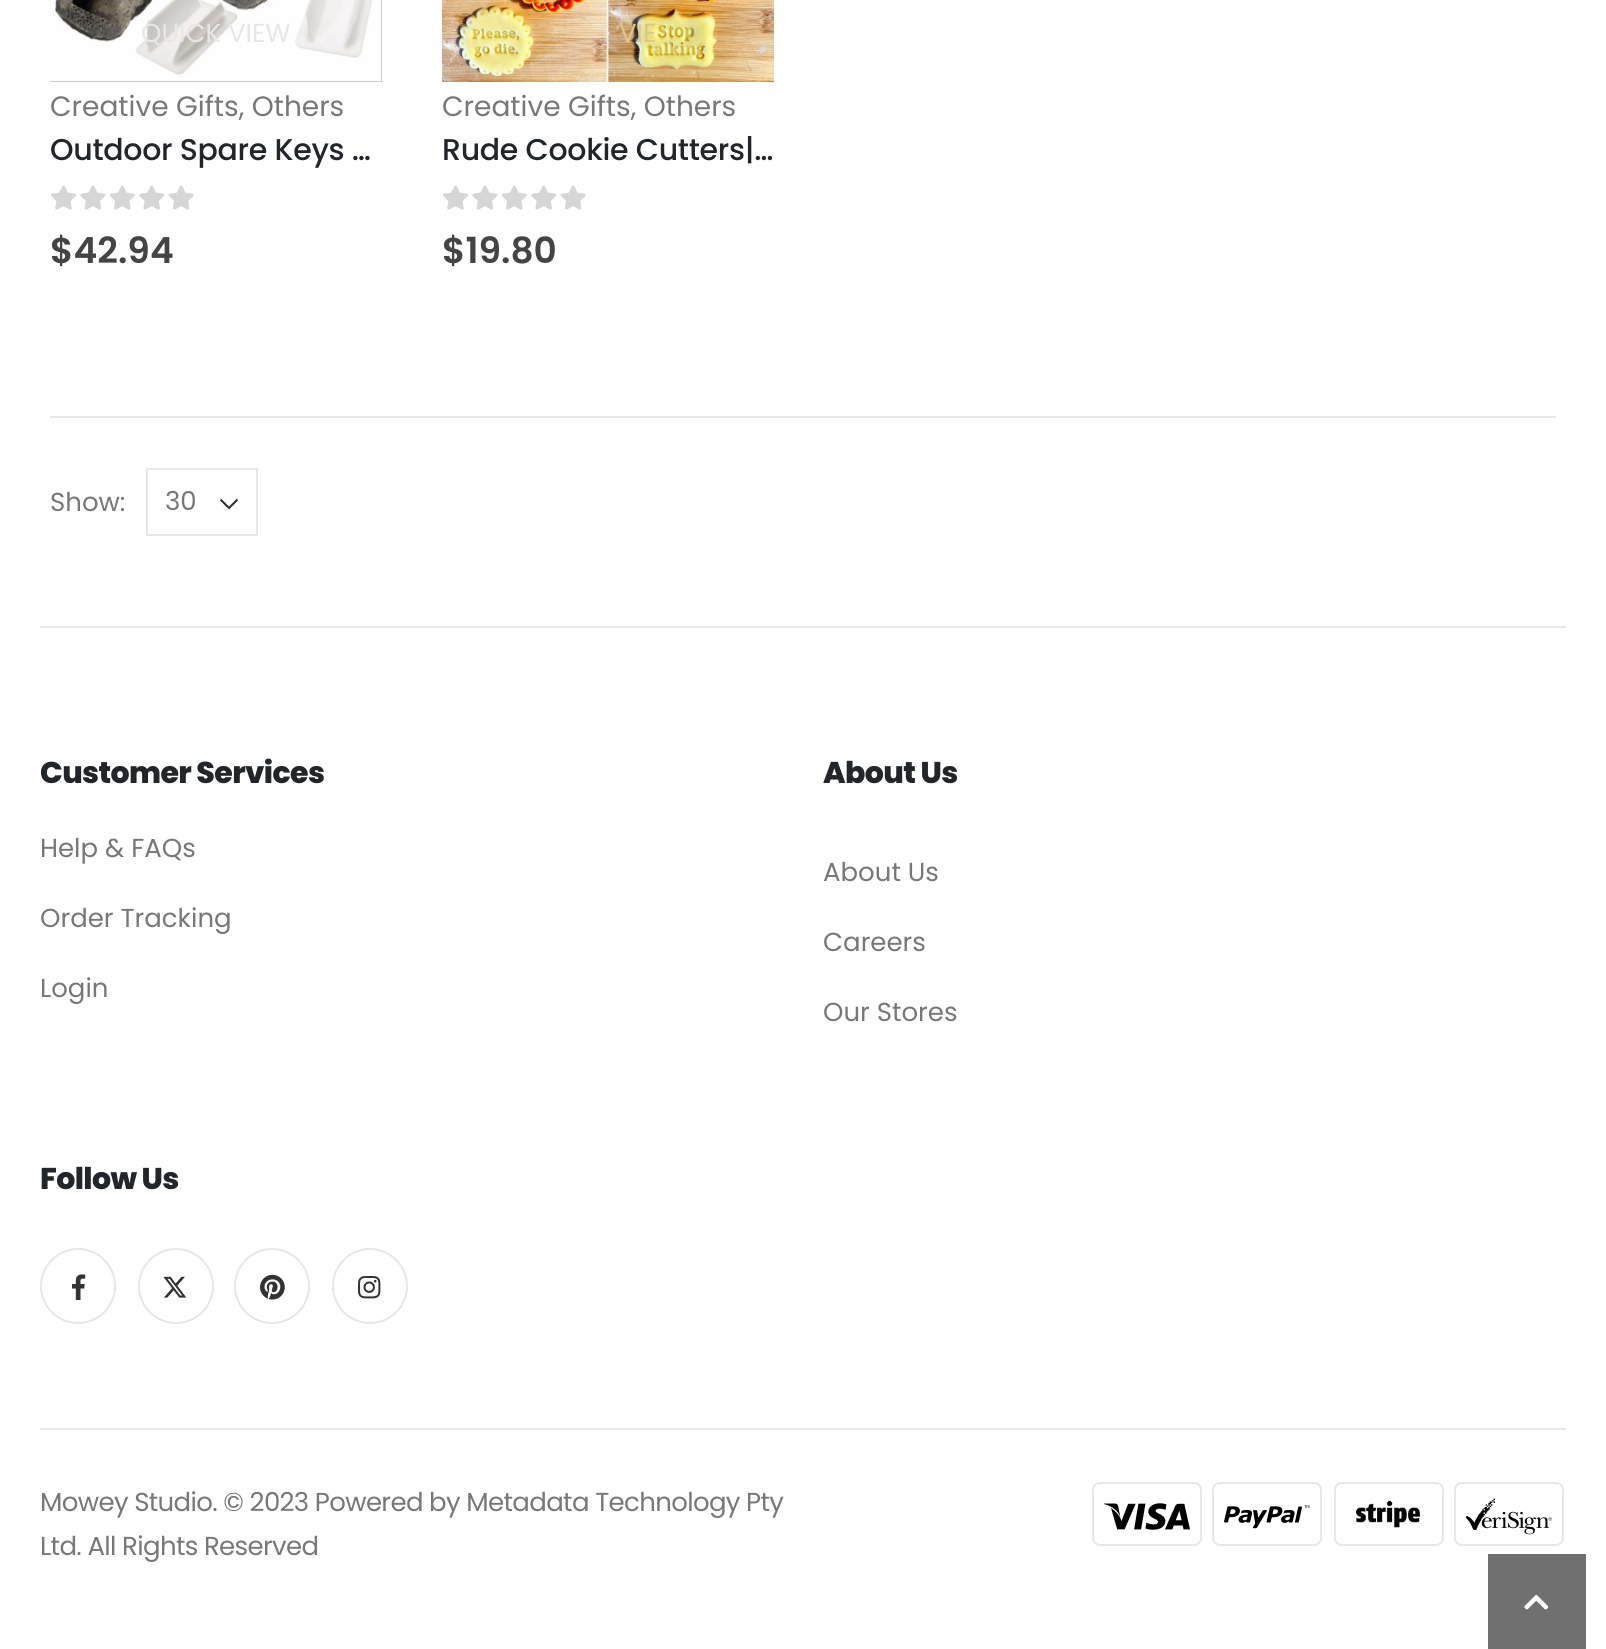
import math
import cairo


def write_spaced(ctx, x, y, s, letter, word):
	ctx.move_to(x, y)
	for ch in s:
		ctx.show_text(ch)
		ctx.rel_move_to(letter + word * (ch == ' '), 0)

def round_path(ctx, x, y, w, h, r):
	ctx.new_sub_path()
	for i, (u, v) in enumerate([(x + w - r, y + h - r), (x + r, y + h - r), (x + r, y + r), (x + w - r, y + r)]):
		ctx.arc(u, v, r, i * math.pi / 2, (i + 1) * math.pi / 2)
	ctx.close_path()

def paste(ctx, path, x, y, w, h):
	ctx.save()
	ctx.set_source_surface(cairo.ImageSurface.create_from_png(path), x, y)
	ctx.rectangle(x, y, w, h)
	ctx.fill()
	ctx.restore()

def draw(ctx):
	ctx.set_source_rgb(1, 1, 1)
	ctx.paint()
	paste(ctx, 'media/1.png', 50, 0, 332, 82)
	ctx.select_font_face('Poppins')
	ctx.set_font_size(26)
	ctx.set_source_rgb(0.91, 0.906, 0.898)
	ctx.move_to(141, 42)
	ctx.show_text('QUICK VIEW')
	ctx.set_font_size(28)
	ctx.set_source_rgb(0.467, 0.467, 0.467)
	ctx.move_to(50, 116)
	ctx.show_text('Creative Gifts, Others')
	ctx.select_font_face('Poppins Medium')
	ctx.set_font_size(30)
	ctx.set_source_rgb(0.133, 0.145, 0.161)
	write_spaced(ctx, 50, 160, 'Outdoor Spare Keys …', -0.3, 0)
	paste(ctx, 'media/2.png', 51, 186, 143, 24)
	ctx.select_font_face('Poppins SemiBold')
	ctx.set_font_size(36)
	ctx.set_source_rgb(0.267, 0.267, 0.267)
	ctx.move_to(50, 263)
	ctx.show_text('$42.94')
	paste(ctx, 'media/3.png', 442, 0, 332, 82)
	ctx.select_font_face('Poppins')
	ctx.set_font_size(26)
	ctx.set_source_rgb(0.871, 0.773, 0.545)
	ctx.move_to(619, 42)
	ctx.show_text('VIE')
	ctx.set_font_size(28)
	ctx.set_source_rgb(0.467, 0.467, 0.467)
	ctx.move_to(442, 116)
	ctx.show_text('Creative Gifts, Others')
	ctx.select_font_face('Poppins Medium')
	ctx.set_font_size(30)
	ctx.set_source_rgb(0.133, 0.145, 0.161)
	write_spaced(ctx, 442, 160, 'Rude Cookie Cutters|…', -0.3, 0)
	paste(ctx, 'media/2.png', 443, 186, 143, 24)
	ctx.select_font_face('Poppins SemiBold')
	ctx.set_font_size(36)
	ctx.set_source_rgb(0.267, 0.267, 0.267)
	ctx.move_to(442, 263)
	ctx.show_text('$19.80')
	ctx.set_source_rgb(0.906, 0.906, 0.906)
	ctx.rectangle(50, 416, 1506, 2)
	ctx.fill()
	ctx.select_font_face('Poppins')
	ctx.set_font_size(26)
	ctx.set_source_rgb(0.467, 0.467, 0.467)
	ctx.move_to(50, 511)
	ctx.show_text('Show:')
	ctx.set_source_rgb(0.2, 0.2, 0.2)
	ctx.set_fill_rule(cairo.FILL_RULE_EVEN_ODD)
	ctx.new_path()
	ctx.move_to(229, 509.5)
	ctx.line_to(238, 500.5)
	ctx.line_to(237, 498.5)
	ctx.line_to(229, 506.5)
	ctx.line_to(221, 498.5)
	ctx.line_to(220, 500.5)
	ctx.close_path()
	ctx.fill()
	ctx.rectangle(147, 469, 110, 66)
	ctx.set_source_rgb(0.906, 0.906, 0.906)
	ctx.stroke()
	ctx.set_source_rgb(0.467, 0.467, 0.467)
	ctx.move_to(165, 510)
	ctx.show_text('30')
	ctx.set_source_rgb(0.906, 0.906, 0.906)
	ctx.rectangle(40, 626, 1526, 2)
	ctx.fill()
	ctx.select_font_face('Poppins ExtraBold')
	ctx.set_font_size(30)
	ctx.set_source_rgb(0.133, 0.145, 0.161)
	write_spaced(ctx, 40, 783, 'Customer Services', -0.6, 0)
	ctx.select_font_face('Poppins')
	ctx.set_font_size(26)
	ctx.set_source_rgb(0.467, 0.467, 0.467)
	for x, y, s in [
		(40, 857, 'Help & FAQs'),
		(40, 927, 'Order Tracking'),
		(40, 997, 'Login'),
	]:
		ctx.move_to(x, y)
		ctx.show_text(s)
	ctx.select_font_face('Poppins ExtraBold')
	ctx.set_font_size(30)
	ctx.set_source_rgb(0.133, 0.145, 0.161)
	write_spaced(ctx, 823, 783, 'About Us', -0.6, 0)
	ctx.select_font_face('Poppins')
	ctx.set_font_size(26)
	ctx.set_source_rgb(0.467, 0.467, 0.467)
	for x, y, s in [
		(823, 881, 'About Us'),
		(823, 951, 'Careers'),
		(823, 1021, 'Our Stores'),
	]:
		ctx.move_to(x, y)
		ctx.show_text(s)
	ctx.select_font_face('Poppins ExtraBold')
	ctx.set_font_size(30)
	ctx.set_source_rgb(0.133, 0.145, 0.161)
	write_spaced(ctx, 40, 1189, 'Follow Us', -0.6, 0)
	ctx.new_path()
	ctx.arc(78, 1286, 37, 0, 2 * math.pi)
	ctx.set_source_rgb(0.906, 0.906, 0.906)
	ctx.stroke()
	paste(ctx, 'media/4.png', 72, 1274, 14, 26)
	ctx.arc(176, 1286, 37, 0, 2 * math.pi)
	ctx.stroke()
	paste(ctx, 'media/5.png', 163, 1276, 24, 22)
	ctx.arc(272, 1286, 37, 0, 2 * math.pi)
	ctx.stroke()
	paste(ctx, 'media/6.png', 260, 1274, 25, 26)
	ctx.arc(370, 1286, 37, 0, 2 * math.pi)
	ctx.stroke()
	paste(ctx, 'media/7.png', 358, 1276, 23, 23)
	ctx.rectangle(40, 1428, 1526, 2)
	ctx.fill()
	ctx.select_font_face('Poppins')
	ctx.set_font_size(26)
	ctx.set_source_rgb(0.467, 0.467, 0.467)
	write_spaced(ctx, 40, 1511, 'Mowey Studio. © 2023 Powered by Metadata Technology Pty', -0.65, 0)
	write_spaced(ctx, 40, 1555, 'Ltd. All Rights Reserved', -0.65, 0)
	round_path(ctx, 1093, 1483, 108, 62, 7)
	ctx.set_source_rgb(0.906, 0.906, 0.906)
	ctx.stroke()
	paste(ctx, 'media/8.png', 1104, 1503, 86, 27)
	round_path(ctx, 1213, 1483, 108, 62, 7)
	ctx.stroke()
	paste(ctx, 'media/9.png', 1224, 1504, 86, 25)
	paste(ctx, 'media/10.png', 1356, 1500, 64, 28)
	round_path(ctx, 1335, 1483, 108, 62, 7)
	ctx.stroke()
	round_path(ctx, 1455, 1483, 108, 62, 7)
	ctx.stroke()
	paste(ctx, 'media/11.png', 1466, 1498, 86, 37)
	ctx.set_source_rgb(0.439, 0.439, 0.439)
	ctx.rectangle(1488, 1554, 98, 95)
	ctx.fill()
	paste(ctx, 'media/12.png', 1524, 1595, 25, 15)


surface = cairo.ImageSurface(cairo.FORMAT_RGB24, 1606, 1649)
ctx = cairo.Context(surface)
options = cairo.FontOptions()
options.set_hint_metrics(cairo.HINT_METRICS_OFF)
options.set_hint_style(cairo.HINT_STYLE_NONE)
ctx.set_font_options(options)
ctx.set_miter_limit(4)
draw(ctx)
surface.write_to_png('image.png')
